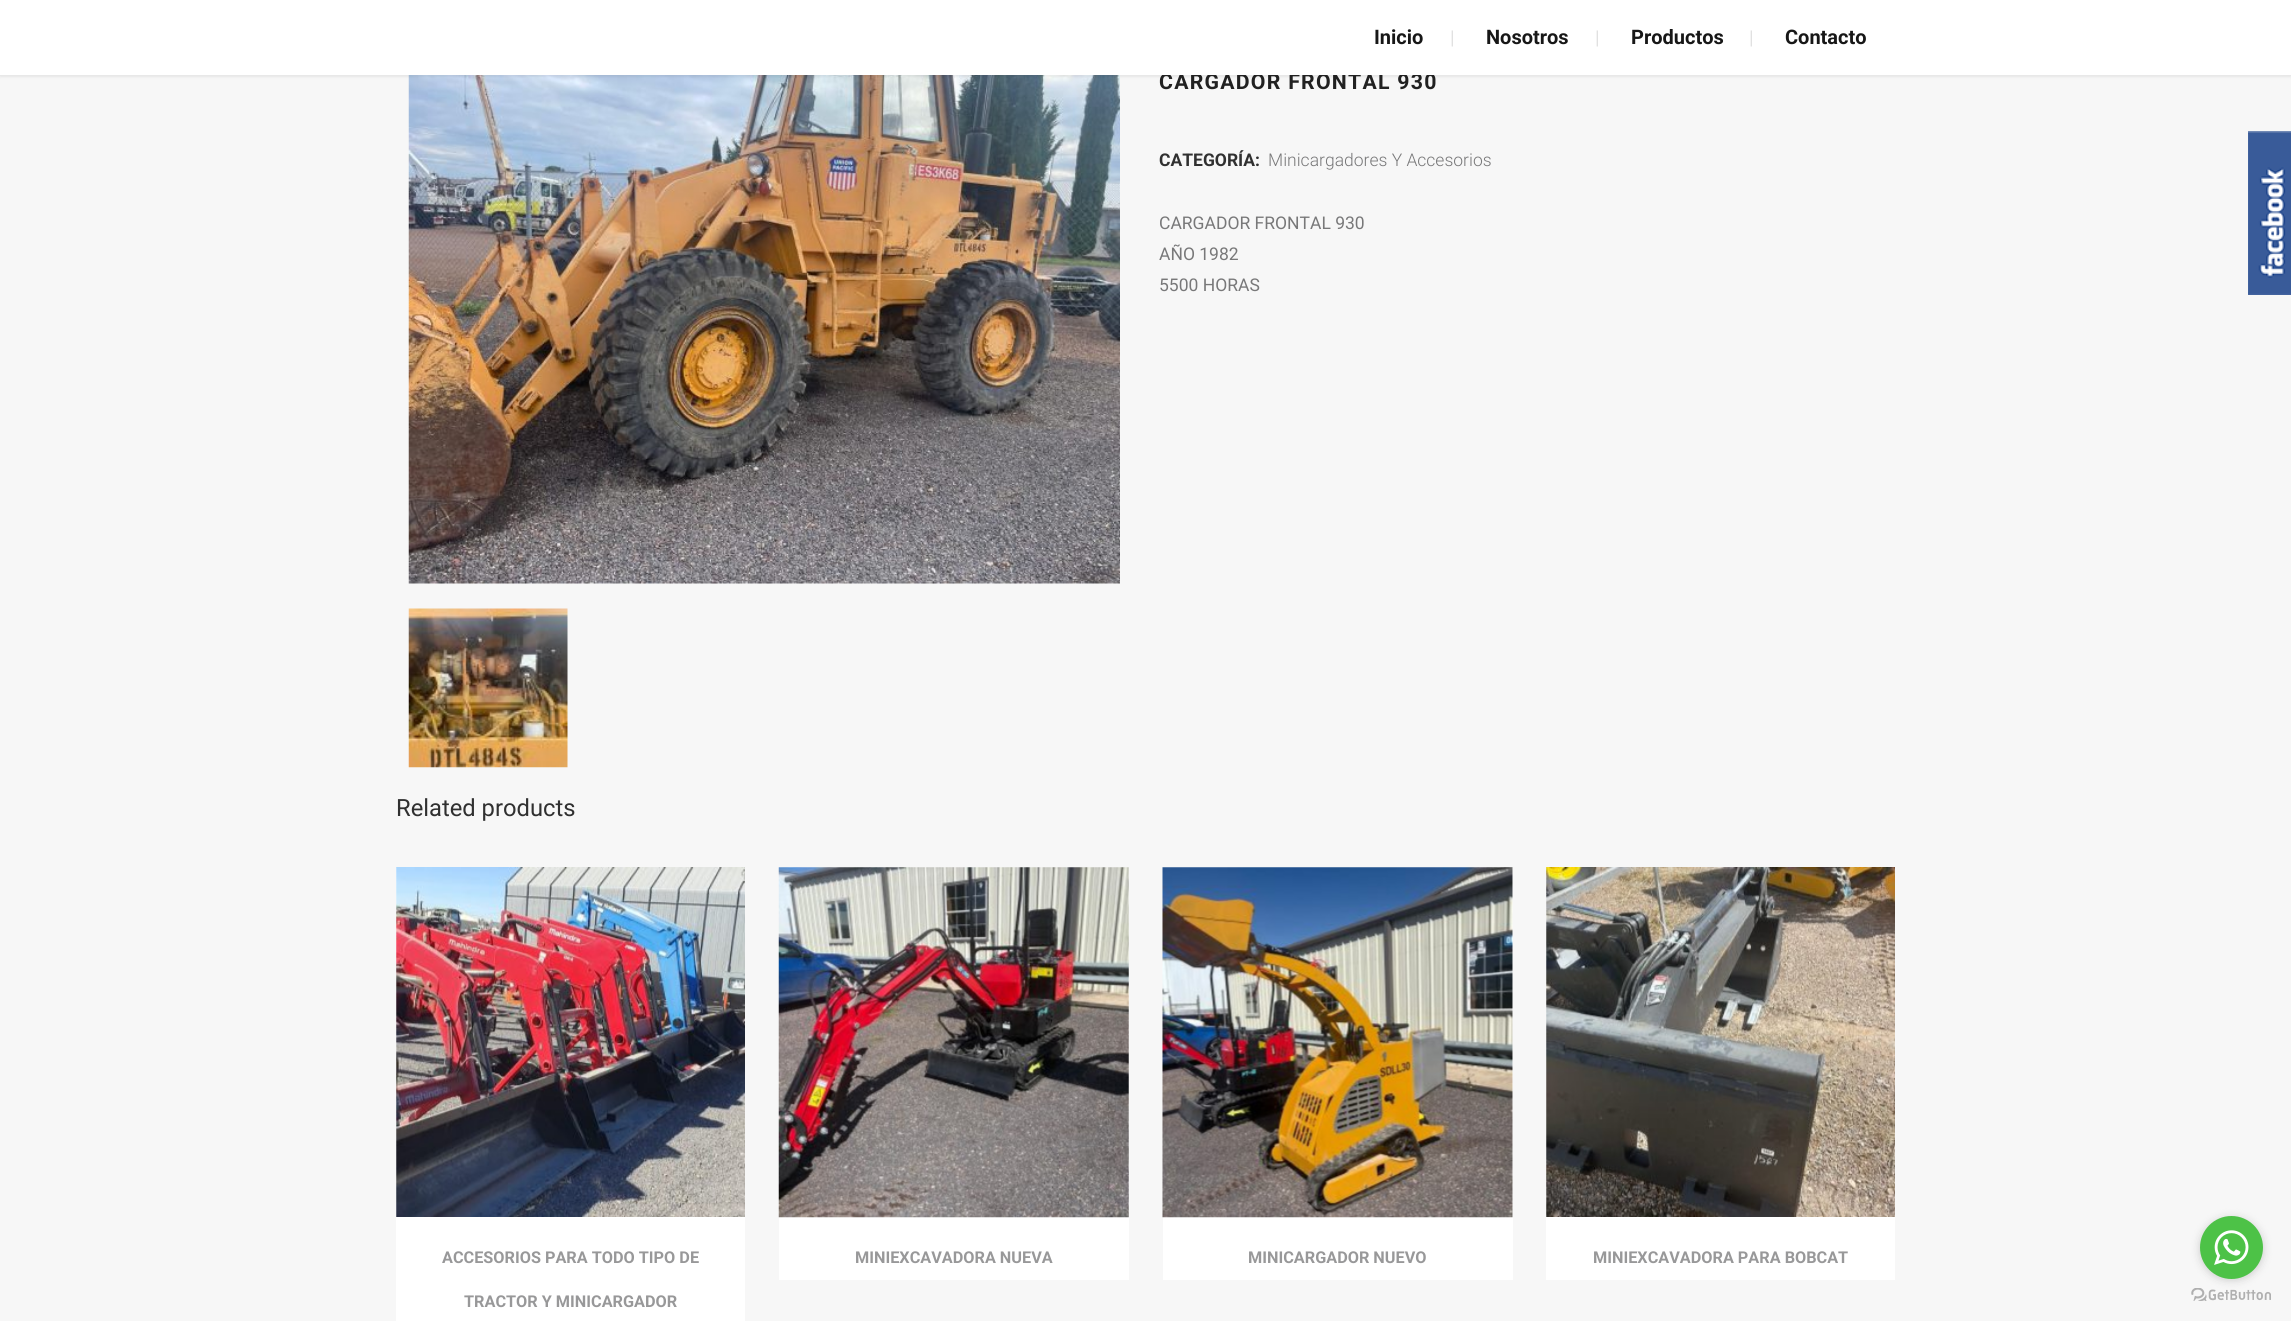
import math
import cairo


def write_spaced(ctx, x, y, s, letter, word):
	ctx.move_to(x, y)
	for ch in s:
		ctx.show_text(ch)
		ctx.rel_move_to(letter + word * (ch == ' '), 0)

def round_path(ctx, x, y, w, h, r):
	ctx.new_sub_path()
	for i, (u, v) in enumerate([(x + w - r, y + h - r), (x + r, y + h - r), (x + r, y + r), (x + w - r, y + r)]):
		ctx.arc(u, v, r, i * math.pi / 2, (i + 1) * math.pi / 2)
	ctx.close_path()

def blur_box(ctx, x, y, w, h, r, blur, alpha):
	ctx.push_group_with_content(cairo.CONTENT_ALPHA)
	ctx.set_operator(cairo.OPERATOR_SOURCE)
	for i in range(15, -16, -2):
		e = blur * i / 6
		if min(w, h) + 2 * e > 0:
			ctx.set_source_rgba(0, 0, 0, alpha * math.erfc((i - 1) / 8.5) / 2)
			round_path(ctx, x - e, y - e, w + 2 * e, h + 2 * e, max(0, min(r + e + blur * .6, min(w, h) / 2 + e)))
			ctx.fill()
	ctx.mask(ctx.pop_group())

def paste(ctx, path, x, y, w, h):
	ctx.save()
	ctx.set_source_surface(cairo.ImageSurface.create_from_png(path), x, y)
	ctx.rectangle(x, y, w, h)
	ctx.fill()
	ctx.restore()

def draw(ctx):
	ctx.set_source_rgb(0.965, 0.965, 0.965)
	ctx.paint()
	paste(ctx, 'media/1.png', 408, 75, 712, 509)
	ctx.set_source_rgb(0, 0, 0)
	blur_box(ctx, 0, 1, 2291, 75, 0, 2, 0.11)
	ctx.select_font_face('Roboto', cairo.FONT_SLANT_NORMAL, cairo.FONT_WEIGHT_BOLD)
	ctx.set_font_size(21.25)
	ctx.set_source_rgb(0.129, 0.129, 0.129)
	write_spaced(ctx, 1159, 89, 'CARGADOR FRONTAL 930', 1.25, 0)
	ctx.set_source_rgb(1, 1, 1)
	ctx.rectangle(0, 0, 2291, 75)
	ctx.fill()
	ctx.set_font_size(20)
	ctx.set_source_rgb(0.09, 0.09, 0.09)
	ctx.move_to(1374, 44)
	ctx.show_text('Inicio')
	ctx.select_font_face('Roboto')
	ctx.set_font_size(19)
	ctx.set_source_rgb(0.882, 0.882, 0.882)
	ctx.move_to(1450, 44)
	ctx.show_text('|')
	ctx.select_font_face('Roboto', cairo.FONT_SLANT_NORMAL, cairo.FONT_WEIGHT_BOLD)
	ctx.set_font_size(20)
	ctx.set_source_rgb(0.09, 0.09, 0.09)
	ctx.move_to(1486, 44)
	ctx.show_text('Nosotros')
	ctx.select_font_face('Roboto')
	ctx.set_font_size(19)
	ctx.set_source_rgb(0.882, 0.882, 0.882)
	ctx.move_to(1595, 44)
	ctx.show_text('|')
	ctx.select_font_face('Roboto', cairo.FONT_SLANT_NORMAL, cairo.FONT_WEIGHT_BOLD)
	ctx.set_font_size(20)
	ctx.set_source_rgb(0.09, 0.09, 0.09)
	ctx.move_to(1631, 44)
	ctx.show_text('Productos')
	ctx.select_font_face('Roboto')
	ctx.set_font_size(19)
	ctx.set_source_rgb(0.882, 0.882, 0.882)
	ctx.move_to(1749, 44)
	ctx.show_text('|')
	ctx.select_font_face('Roboto', cairo.FONT_SLANT_NORMAL, cairo.FONT_WEIGHT_BOLD)
	ctx.set_font_size(20)
	ctx.set_source_rgb(0.09, 0.09, 0.09)
	ctx.move_to(1785, 44)
	ctx.show_text('Contacto')
	paste(ctx, 'media/2.png', 408, 608, 160, 160)
	ctx.set_font_size(17.5)
	ctx.set_source_rgb(0.188, 0.188, 0.188)
	ctx.move_to(1159, 166)
	ctx.show_text('CATEGORÍA:')
	ctx.select_font_face('Roboto Light')
	ctx.set_source_rgb(0.471, 0.471, 0.475)
	ctx.move_to(1268, 166)
	ctx.show_text('Minicargadores Y Accesorios')
	ctx.select_font_face('Roboto')
	for x, y, s in [
		(1159, 229, 'CARGADOR FRONTAL 930'),
		(1159, 260, 'AÑO 1982'),
		(1159, 291, '5500 HORAS'),
	]:
		ctx.move_to(x, y)
		ctx.show_text(s)
	ctx.set_font_size(23.75)
	ctx.set_source_rgb(0.188, 0.188, 0.188)
	ctx.move_to(396, 816)
	ctx.show_text('Related products')
	ctx.set_source_rgb(1, 1, 1)
	ctx.rectangle(396, 868, 349, 453)
	ctx.fill()
	paste(ctx, 'media/3.png', 396, 867, 349, 350)
	ctx.select_font_face('Roboto', cairo.FONT_SLANT_NORMAL, cairo.FONT_WEIGHT_BOLD)
	ctx.set_font_size(16.25)
	ctx.set_source_rgb(0.596, 0.596, 0.6)
	ctx.move_to(442, 1263)
	ctx.show_text('ACCESORIOS PARA TODO TIPO DE')
	ctx.move_to(464, 1307)
	ctx.show_text('TRACTOR Y MINICARGADOR')
	ctx.set_source_rgb(1, 1, 1)
	ctx.rectangle(779, 868, 350, 412)
	ctx.fill()
	paste(ctx, 'media/4.png', 778, 867, 351, 351)
	ctx.set_source_rgb(0.596, 0.596, 0.6)
	ctx.move_to(855, 1263)
	ctx.show_text('MINIEXCAVADORA NUEVA')
	ctx.set_source_rgb(1, 1, 1)
	ctx.rectangle(1163, 868, 350, 412)
	ctx.fill()
	paste(ctx, 'media/5.png', 1162, 867, 351, 351)
	ctx.set_source_rgb(0.596, 0.596, 0.6)
	ctx.move_to(1248, 1263)
	ctx.show_text('MINICARGADOR NUEVO')
	ctx.set_source_rgb(1, 1, 1)
	ctx.rectangle(1546, 868, 349, 412)
	ctx.fill()
	paste(ctx, 'media/6.png', 1546, 867, 349, 350)
	ctx.set_source_rgb(0.596, 0.596, 0.6)
	ctx.move_to(1593, 1263)
	ctx.show_text('MINIEXCAVADORA PARA BOBCAT')
	paste(ctx, 'media/7.png', 2248, 131, 43, 164)
	paste(ctx, 'media/9.png', 2191, 1288, 80, 13)
	ctx.set_source_rgb(0.533, 0.533, 0.533)
	blur_box(ctx, 2200, 1218, 63, 62, 31, 4.5, 0.4)
	ctx.set_source_rgb(0.302, 0.761, 0.278)
	ctx.arc(2231.5, 1247.5, 31.5, 0, 2 * math.pi)
	ctx.fill()
	paste(ctx, 'media/8.png', 2214, 1230, 35, 35)


surface = cairo.ImageSurface(cairo.FORMAT_RGB24, 2291, 1321)
ctx = cairo.Context(surface)
options = cairo.FontOptions()
options.set_hint_metrics(cairo.HINT_METRICS_OFF)
options.set_hint_style(cairo.HINT_STYLE_NONE)
ctx.set_font_options(options)
ctx.set_miter_limit(4)
draw(ctx)
surface.write_to_png('image.png')
